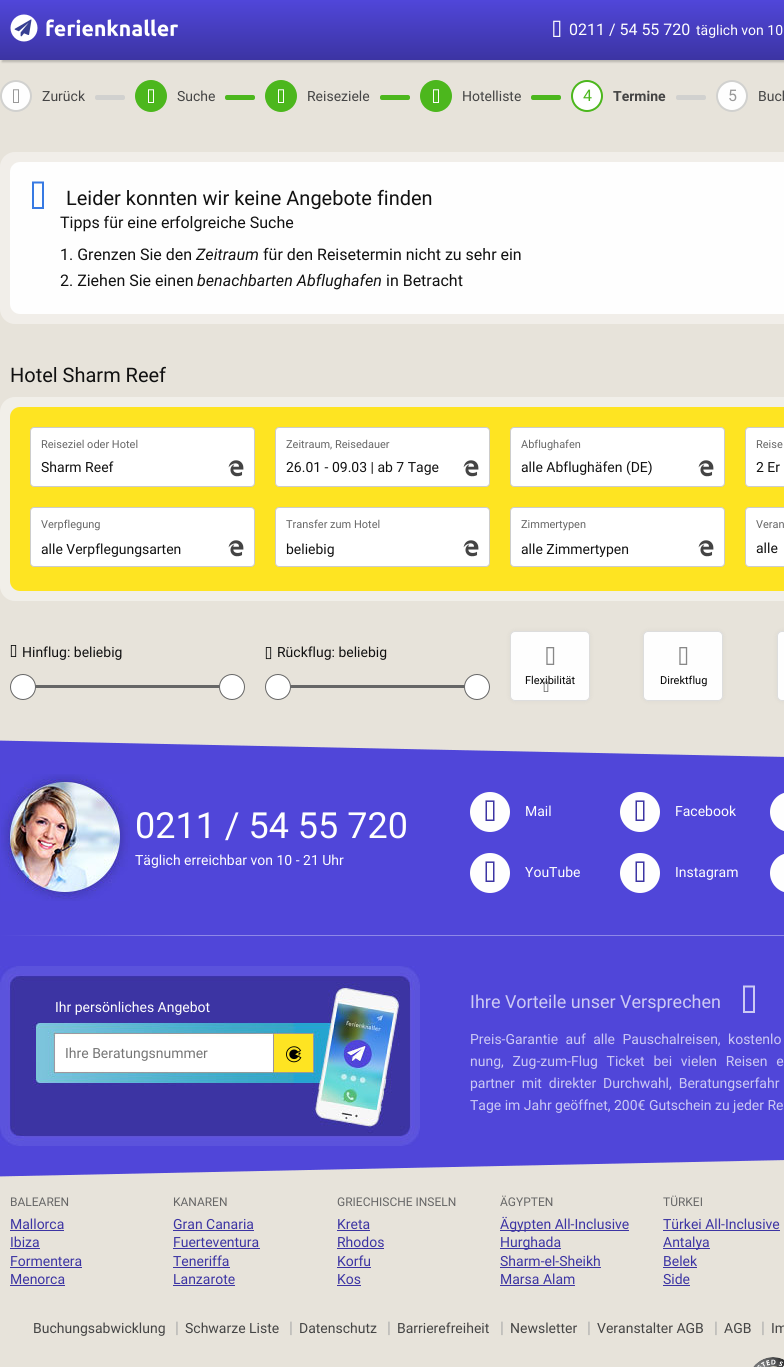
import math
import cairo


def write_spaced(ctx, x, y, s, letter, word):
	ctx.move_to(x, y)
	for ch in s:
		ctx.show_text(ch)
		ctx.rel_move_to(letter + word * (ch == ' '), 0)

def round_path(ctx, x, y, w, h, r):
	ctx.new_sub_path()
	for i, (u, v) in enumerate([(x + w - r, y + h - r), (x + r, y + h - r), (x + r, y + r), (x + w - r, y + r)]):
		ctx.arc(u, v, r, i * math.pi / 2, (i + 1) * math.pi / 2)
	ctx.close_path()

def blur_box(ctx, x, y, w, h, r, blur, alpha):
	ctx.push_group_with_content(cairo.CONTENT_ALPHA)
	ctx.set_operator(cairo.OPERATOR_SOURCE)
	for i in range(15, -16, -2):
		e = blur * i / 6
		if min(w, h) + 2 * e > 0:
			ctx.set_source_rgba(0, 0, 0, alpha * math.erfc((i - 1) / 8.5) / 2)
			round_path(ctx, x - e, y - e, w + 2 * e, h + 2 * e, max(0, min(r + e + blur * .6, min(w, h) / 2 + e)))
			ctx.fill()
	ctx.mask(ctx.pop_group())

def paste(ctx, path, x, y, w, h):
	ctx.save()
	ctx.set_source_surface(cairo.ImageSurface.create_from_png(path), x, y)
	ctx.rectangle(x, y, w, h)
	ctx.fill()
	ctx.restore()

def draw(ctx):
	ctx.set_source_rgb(0.906, 0.89, 0.855)
	ctx.paint()
	ctx.set_source_rgb(0, 0, 0)
	blur_box(ctx, 2, 6, 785, 56, 0, 1, 0.2)
	gradient = cairo.LinearGradient(500, 0, 500, 60)
	gradient.add_color_stop_rgba(0, 0.314, 0.275, 0.851, 1)
	gradient.add_color_stop_rgba(1, 0.235, 0.204, 0.639, 1)
	ctx.set_source(gradient)
	ctx.rectangle(0, 0, 784, 60)
	ctx.fill()
	paste(ctx, 'media/1.png', 10, 14, 168, 28)
	paste(ctx, 'media/2.png', 553, 20, 8, 17)
	ctx.select_font_face('Roboto')
	ctx.set_font_size(16)
	ctx.set_source_rgb(0.996, 0.996, 0.996)
	ctx.move_to(569, 35)
	ctx.show_text('0211 / 54 55 720')
	ctx.set_font_size(14)
	ctx.move_to(696, 35)
	ctx.show_text('täglich von 10')
	ctx.new_path()
	ctx.arc(16, 96, 15, 0, 2 * math.pi)
	ctx.fill_preserve()
	ctx.set_source_rgb(0.82, 0.82, 0.812)
	ctx.stroke()
	paste(ctx, 'media/3.png', 13, 89, 6, 14)
	ctx.set_source_rgb(0.267, 0.267, 0.267)
	ctx.move_to(42, 101)
	ctx.show_text('Zurück')
	ctx.set_source_rgb(0.82, 0.82, 0.812)
	round_path(ctx, 95, 95, 30, 5, 2)
	ctx.fill()
	ctx.set_source_rgb(0.298, 0.718, 0.114)
	ctx.arc(151, 96, 15, 0, 2 * math.pi)
	ctx.fill_preserve()
	ctx.stroke()
	paste(ctx, 'media/4.png', 148, 89, 6, 14)
	ctx.set_source_rgb(0.267, 0.267, 0.267)
	ctx.move_to(177, 101)
	ctx.show_text('Suche')
	ctx.set_source_rgb(0.298, 0.718, 0.114)
	round_path(ctx, 225, 95, 30, 5, 2)
	ctx.fill()
	ctx.arc(281, 96, 15, 0, 2 * math.pi)
	ctx.fill_preserve()
	ctx.stroke()
	paste(ctx, 'media/4.png', 278, 89, 6, 14)
	ctx.set_source_rgb(0.267, 0.267, 0.267)
	ctx.move_to(307, 101)
	ctx.show_text('Reiseziele')
	ctx.set_source_rgb(0.298, 0.718, 0.114)
	round_path(ctx, 380, 95, 30, 5, 2)
	ctx.fill()
	ctx.arc(436, 96, 15, 0, 2 * math.pi)
	ctx.fill_preserve()
	ctx.stroke()
	paste(ctx, 'media/4.png', 433, 89, 6, 14)
	ctx.set_source_rgb(0.267, 0.267, 0.267)
	ctx.move_to(462, 101)
	ctx.show_text('Hotelliste')
	ctx.set_source_rgb(0.298, 0.718, 0.114)
	round_path(ctx, 531, 95, 30, 5, 2)
	ctx.fill()
	ctx.set_source_rgb(0.996, 0.996, 0.996)
	ctx.arc(587, 96, 15, 0, 2 * math.pi)
	ctx.fill_preserve()
	ctx.set_source_rgb(0.298, 0.718, 0.114)
	ctx.stroke()
	ctx.set_font_size(16)
	ctx.move_to(583, 101)
	ctx.show_text('4')
	ctx.select_font_face('Roboto', cairo.FONT_SLANT_NORMAL, cairo.FONT_WEIGHT_BOLD)
	ctx.set_font_size(14)
	ctx.set_source_rgb(0.267, 0.267, 0.267)
	ctx.move_to(613, 101)
	ctx.show_text('Termine')
	ctx.set_source_rgb(0.82, 0.82, 0.812)
	round_path(ctx, 676, 95, 30, 5, 2)
	ctx.fill()
	ctx.set_source_rgb(0.996, 0.996, 0.996)
	ctx.arc(732, 96, 15, 0, 2 * math.pi)
	ctx.fill_preserve()
	ctx.set_source_rgb(0.82, 0.82, 0.812)
	ctx.stroke()
	ctx.select_font_face('Roboto')
	ctx.set_font_size(16)
	ctx.set_source_rgb(0.6, 0.6, 0.6)
	ctx.move_to(728, 101)
	ctx.show_text('5')
	ctx.set_font_size(14)
	ctx.set_source_rgb(0.267, 0.267, 0.267)
	ctx.move_to(758, 101)
	ctx.show_text('Buch')
	ctx.set_source_rgb(0.945, 0.933, 0.914)
	round_path(ctx, 0, 152, 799, 172, 15)
	ctx.fill()
	ctx.set_source_rgb(0.996, 0.996, 0.996)
	round_path(ctx, 10, 162, 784, 152, 10)
	ctx.fill()
	ctx.set_source_rgb(0.216, 0.478, 0.89)
	ctx.new_path()
	ctx.move_to(34, 207)
	ctx.line_to(34, 183.5)
	ctx.line_to(42, 183.5)
	ctx.line_to(42, 207)
	ctx.close_path()
	ctx.move_to(32, 209)
	ctx.line_to(44, 209)
	ctx.line_to(44, 181.5)
	ctx.line_to(32, 181.5)
	ctx.close_path()
	ctx.fill()
	ctx.set_font_size(20)
	ctx.set_source_rgb(0.067, 0.067, 0.067)
	ctx.move_to(66, 205)
	ctx.show_text('Leider konnten wir keine Angebote finden')
	ctx.set_font_size(16)
	ctx.move_to(60, 228)
	ctx.show_text('Tipps für eine erfolgreiche Suche')
	ctx.move_to(60, 260)
	ctx.show_text('1. Grenzen Sie den')
	ctx.select_font_face('Roboto', cairo.FONT_SLANT_ITALIC)
	ctx.move_to(196, 260)
	ctx.show_text('Zeitraum')
	ctx.select_font_face('Roboto')
	ctx.move_to(263, 260)
	ctx.show_text('für den Reisetermin nicht zu sehr ein')
	ctx.move_to(60, 286)
	ctx.show_text('2. Ziehen Sie einen')
	ctx.select_font_face('Roboto', cairo.FONT_SLANT_ITALIC)
	ctx.move_to(197, 286)
	ctx.show_text('benachbarten Abflughafen')
	ctx.select_font_face('Roboto')
	ctx.move_to(386, 286)
	ctx.show_text('in Betracht')
	ctx.set_font_size(20)
	ctx.move_to(10, 382)
	ctx.show_text('Hotel Sharm Reef')
	ctx.set_source_rgb(0.945, 0.937, 0.914)
	round_path(ctx, 0, 397, 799, 204, 15)
	ctx.fill()
	ctx.set_source_rgb(0.996, 0.894, 0.133)
	round_path(ctx, 10, 407, 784, 184, 10)
	ctx.fill()
	ctx.set_source_rgb(1, 1, 1)
	round_path(ctx, 30.5, 427.5, 224, 59, 3.5)
	ctx.fill_preserve()
	ctx.set_source_rgb(0.8, 0.8, 0.8)
	ctx.set_line_width(1)
	ctx.stroke()
	ctx.set_font_size(11)
	ctx.set_source_rgb(0.4, 0.4, 0.4)
	ctx.move_to(41, 448)
	ctx.show_text('Reiseziel oder Hotel')
	ctx.set_font_size(14)
	ctx.set_source_rgb(0.067, 0.067, 0.067)
	ctx.move_to(41, 472)
	ctx.show_text('Sharm Reef')
	paste(ctx, 'media/5.png', 228, 460, 16, 17)
	ctx.set_source_rgb(1, 1, 1)
	round_path(ctx, 275.5, 427.5, 214, 59, 3.5)
	ctx.fill_preserve()
	ctx.set_source_rgb(0.8, 0.8, 0.8)
	ctx.stroke()
	ctx.set_font_size(11)
	ctx.set_source_rgb(0.4, 0.4, 0.4)
	ctx.move_to(286, 448)
	ctx.show_text('Zeitraum, Reisedauer')
	ctx.set_font_size(14)
	ctx.set_source_rgb(0.067, 0.067, 0.067)
	ctx.move_to(286, 472)
	ctx.show_text('26.01 - 09.03 | ab 7 Tage')
	paste(ctx, 'media/5.png', 463, 460, 16, 17)
	ctx.set_source_rgb(1, 1, 1)
	round_path(ctx, 510.5, 427.5, 214, 59, 3.5)
	ctx.fill_preserve()
	ctx.set_source_rgb(0.8, 0.8, 0.8)
	ctx.stroke()
	ctx.set_font_size(11)
	ctx.set_source_rgb(0.4, 0.4, 0.4)
	ctx.move_to(521, 448)
	ctx.show_text('Abflughafen')
	ctx.set_font_size(14)
	ctx.set_source_rgb(0.067, 0.067, 0.067)
	ctx.move_to(521, 472)
	ctx.show_text('alle Abflughäfen (DE)')
	paste(ctx, 'media/5.png', 698, 460, 16, 17)
	ctx.set_source_rgb(1, 1, 1)
	round_path(ctx, 745.5, 427.5, 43, 59, 3.5)
	ctx.fill_preserve()
	ctx.set_source_rgb(0.8, 0.8, 0.8)
	ctx.stroke()
	ctx.set_font_size(11)
	ctx.set_source_rgb(0.4, 0.4, 0.4)
	ctx.move_to(756, 448)
	ctx.show_text('Reise')
	ctx.set_font_size(14)
	ctx.set_source_rgb(0.067, 0.067, 0.067)
	ctx.move_to(756, 472)
	ctx.show_text('2 Er')
	ctx.set_source_rgb(1, 1, 1)
	round_path(ctx, 30.5, 507.5, 224, 59, 3.5)
	ctx.fill_preserve()
	ctx.set_source_rgb(0.8, 0.8, 0.8)
	ctx.stroke()
	ctx.set_font_size(11)
	ctx.set_source_rgb(0.4, 0.4, 0.4)
	ctx.move_to(41, 528)
	ctx.show_text('Verpflegung')
	ctx.set_font_size(14)
	ctx.set_source_rgb(0.067, 0.067, 0.067)
	ctx.move_to(41, 554)
	ctx.show_text('alle Verpflegungsarten')
	paste(ctx, 'media/5.png', 228, 540, 16, 17)
	ctx.set_source_rgb(1, 1, 1)
	round_path(ctx, 275.5, 507.5, 214, 59, 3.5)
	ctx.fill_preserve()
	ctx.set_source_rgb(0.8, 0.8, 0.8)
	ctx.stroke()
	ctx.set_font_size(11)
	ctx.set_source_rgb(0.4, 0.4, 0.4)
	ctx.move_to(286, 528)
	ctx.show_text('Transfer zum Hotel')
	ctx.set_font_size(14)
	ctx.set_source_rgb(0.067, 0.067, 0.067)
	ctx.move_to(286, 554)
	ctx.show_text('beliebig')
	paste(ctx, 'media/5.png', 463, 540, 16, 17)
	ctx.set_source_rgb(1, 1, 1)
	round_path(ctx, 510.5, 507.5, 214, 59, 3.5)
	ctx.fill_preserve()
	ctx.set_source_rgb(0.8, 0.8, 0.8)
	ctx.stroke()
	ctx.set_font_size(11)
	ctx.set_source_rgb(0.4, 0.4, 0.4)
	ctx.move_to(521, 528)
	ctx.show_text('Zimmertypen')
	ctx.set_font_size(14)
	ctx.set_source_rgb(0.067, 0.067, 0.067)
	ctx.move_to(521, 554)
	ctx.show_text('alle Zimmertypen')
	paste(ctx, 'media/5.png', 698, 540, 16, 17)
	ctx.set_source_rgb(1, 1, 1)
	round_path(ctx, 745.5, 507.5, 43, 59, 3.5)
	ctx.fill_preserve()
	ctx.set_source_rgb(0.8, 0.8, 0.8)
	ctx.stroke()
	ctx.set_font_size(11)
	ctx.set_source_rgb(0.4, 0.4, 0.4)
	ctx.move_to(756, 528)
	ctx.show_text('Veran')
	ctx.set_font_size(14)
	ctx.set_source_rgb(0.067, 0.067, 0.067)
	ctx.move_to(756, 553)
	ctx.show_text('alle')
	paste(ctx, 'media/6.png', 10, 645, 7, 12)
	ctx.move_to(22, 657)
	ctx.show_text('Hinflug: beliebig')
	ctx.set_source_rgb(0.4, 0.4, 0.4)
	ctx.rectangle(35, 685, 185, 3)
	ctx.fill()
	ctx.set_source_rgb(1, 1, 1)
	ctx.arc(23, 687, 12.5, 0, 2 * math.pi)
	ctx.fill_preserve()
	ctx.set_source_rgb(0.4, 0.4, 0.4)
	ctx.stroke()
	ctx.set_source_rgb(1, 1, 1)
	ctx.arc(232, 687, 12.5, 0, 2 * math.pi)
	ctx.fill_preserve()
	ctx.set_source_rgb(0.4, 0.4, 0.4)
	ctx.stroke()
	paste(ctx, 'media/7.png', 265, 647, 7, 13)
	ctx.set_source_rgb(0.067, 0.067, 0.067)
	ctx.move_to(277, 657)
	ctx.show_text('Rückflug: beliebig')
	ctx.set_source_rgb(0.4, 0.4, 0.4)
	ctx.rectangle(290, 685, 175, 3)
	ctx.fill()
	ctx.set_source_rgb(1, 1, 1)
	ctx.arc(278, 687, 12.5, 0, 2 * math.pi)
	ctx.fill_preserve()
	ctx.set_source_rgb(0.4, 0.4, 0.4)
	ctx.stroke()
	ctx.set_source_rgb(1, 1, 1)
	ctx.arc(477, 687, 12.5, 0, 2 * math.pi)
	ctx.fill_preserve()
	ctx.set_source_rgb(0.4, 0.4, 0.4)
	ctx.stroke()
	ctx.set_source_rgb(0, 0, 0)
	blur_box(ctx, 510, 631, 80, 70, 5, 2.5, 0.05)
	ctx.set_source_rgb(0.996, 0.996, 0.996)
	round_path(ctx, 510.5, 631.5, 79, 69, 4.5)
	ctx.fill_preserve()
	ctx.set_source_rgb(0.867, 0.867, 0.867)
	ctx.stroke()
	paste(ctx, 'media/8.png', 546, 647, 9, 18)
	ctx.set_font_size(11)
	ctx.set_source_rgb(0, 0, 0)
	ctx.move_to(525, 684)
	ctx.show_text('Flexibilität')
	paste(ctx, 'media/9.png', 543, 681, 6, 11)
	ctx.set_source_rgb(0, 0, 0)
	blur_box(ctx, 643, 631, 80, 70, 5, 2.5, 0.05)
	ctx.set_source_rgb(0.996, 0.996, 0.996)
	round_path(ctx, 643.5, 631.5, 79, 69, 4.5)
	ctx.fill_preserve()
	ctx.set_source_rgb(0.867, 0.867, 0.867)
	ctx.stroke()
	paste(ctx, 'media/8.png', 679, 647, 9, 18)
	ctx.set_source_rgb(0, 0, 0)
	ctx.move_to(660, 684)
	ctx.show_text('Direktflug')
	ctx.set_source_rgb(0, 0, 0)
	blur_box(ctx, 777, 631, 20, 70, 5, 2.5, 0.05)
	ctx.set_source_rgb(0.996, 0.996, 0.996)
	round_path(ctx, 777.5, 631.5, 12, 69, 4.5)
	ctx.fill_preserve()
	ctx.set_source_rgb(0.867, 0.867, 0.867)
	ctx.stroke()
	ctx.set_source_rgb(0.314, 0.275, 0.851)
	ctx.new_path()
	ctx.move_to(-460, 731)
	ctx.line_to(-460, 771)
	ctx.line_to(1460, 771)
	ctx.close_path()
	ctx.fill()
	ctx.rectangle(0, 771, 784, 375)
	ctx.fill()
	paste(ctx, 'media/10.png', 1, 774, 129, 127)
	ctx.set_font_size(36)
	ctx.set_source_rgb(0.996, 0.996, 0.996)
	ctx.move_to(135, 838)
	ctx.show_text('0211 / 54 55 720')
	ctx.set_font_size(14)
	ctx.move_to(135, 865)
	ctx.show_text('Täglich erreichbar von 10 - 21 Uhr')
	ctx.new_path()
	ctx.arc(490, 812, 20, 0, 2 * math.pi)
	ctx.fill()
	paste(ctx, 'media/11.png', 485, 800, 10, 21)
	ctx.move_to(525, 816)
	ctx.show_text('Mail')
	ctx.new_path()
	ctx.arc(640, 812, 20, 0, 2 * math.pi)
	ctx.fill()
	paste(ctx, 'media/11.png', 635, 800, 10, 21)
	ctx.move_to(675, 816)
	ctx.show_text('Facebook')
	round_path(ctx, 770, 792, 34, 40, 20)
	ctx.fill()
	ctx.arc(490, 873, 20, 0, 2 * math.pi)
	ctx.fill()
	paste(ctx, 'media/11.png', 485, 861, 10, 21)
	ctx.move_to(525, 877)
	ctx.show_text('YouTube')
	ctx.new_path()
	ctx.arc(640, 873, 20, 0, 2 * math.pi)
	ctx.fill()
	paste(ctx, 'media/11.png', 635, 861, 10, 21)
	ctx.move_to(675, 877)
	ctx.show_text('Instagram')
	round_path(ctx, 770, 853, 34, 40, 20)
	ctx.fill()
	gradient = cairo.LinearGradient(0, 936, 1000, 936)
	gradient.add_color_stop_rgba(0, 0.314, 0.275, 0.851, 1)
	gradient.add_color_stop_rgba(0.2, 0.557, 0.533, 0.906, 1)
	gradient.add_color_stop_rgba(0.8, 0.557, 0.533, 0.906, 1)
	gradient.add_color_stop_rgba(1, 0.314, 0.275, 0.851, 1)
	ctx.set_source(gradient)
	ctx.rectangle(0, 935, 784, 1)
	ctx.fill()
	paste(ctx, 'media/12.png', 0, 966, 420, 180)
	ctx.set_source_rgb(0.996, 0.996, 0.996)
	ctx.move_to(55, 1012)
	ctx.show_text('Ihr persönliches Angebot')
	ctx.set_source_rgb(0.459, 0.459, 0.459)
	ctx.move_to(65, 1058)
	ctx.show_text('Ihre Beratungsnummer')
	ctx.set_source_rgb(0.996, 0.894, 0.133)
	ctx.rectangle(274, 1034, 39, 38)
	ctx.fill()
	paste(ctx, 'media/13.png', 286, 1046, 16, 17)
	ctx.set_font_size(18)
	ctx.set_source_rgb(0.8, 0.788, 0.957)
	ctx.move_to(470, 1008)
	ctx.show_text('Ihre Vorteile unser Versprechen')
	ctx.new_path()
	ctx.move_to(745, 1011)
	ctx.line_to(745, 987.5)
	ctx.line_to(753, 987.5)
	ctx.line_to(753, 1011)
	ctx.close_path()
	ctx.move_to(743, 1013)
	ctx.line_to(755, 1013)
	ctx.line_to(755, 985.5)
	ctx.line_to(743, 985.5)
	ctx.close_path()
	ctx.fill()
	ctx.set_font_size(14)
	write_spaced(ctx, 470, 1044, 'Preis-Garantie auf alle Pauschalreisen, kostenlo', 0, 4)
	write_spaced(ctx, 470, 1066, 'nung, Zug-zum-Flug Ticket bei vielen Reisen e', 0, 5.25)
	write_spaced(ctx, 470, 1088, 'partner mit direkter Durchwahl, Beratungserfahr', 0, 3.5)
	ctx.move_to(470, 1110)
	ctx.show_text('Tage im Jahr geöffnet, 200€ Gutschein zu jeder Re')
	ctx.set_source_rgb(0.314, 0.275, 0.851)
	ctx.new_path()
	ctx.move_to(-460, 1146)
	ctx.line_to(-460, 1186)
	ctx.line_to(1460, 1146)
	ctx.close_path()
	ctx.fill()
	ctx.set_font_size(12)
	ctx.set_source_rgb(0.4, 0.4, 0.4)
	ctx.move_to(10, 1206)
	ctx.show_text('BALEAREN')
	ctx.set_font_size(14)
	ctx.set_source_rgb(0.235, 0.204, 0.639)
	ctx.move_to(10, 1229)
	ctx.show_text('Mallorca')
	ctx.rectangle(10, 1230, 54, 1)
	ctx.fill()
	ctx.move_to(10, 1247)
	ctx.show_text('Ibiza')
	ctx.rectangle(10, 1248, 30, 1)
	ctx.fill()
	ctx.move_to(10, 1266)
	ctx.show_text('Formentera')
	ctx.rectangle(10, 1267, 72, 1)
	ctx.fill()
	ctx.move_to(10, 1284)
	ctx.show_text('Menorca')
	ctx.rectangle(10, 1285, 55, 1)
	ctx.fill()
	ctx.set_font_size(12)
	ctx.set_source_rgb(0.4, 0.4, 0.4)
	ctx.move_to(173, 1206)
	ctx.show_text('KANAREN')
	ctx.set_font_size(14)
	ctx.set_source_rgb(0.235, 0.204, 0.639)
	ctx.move_to(173, 1229)
	ctx.show_text('Gran Canaria')
	ctx.rectangle(173, 1230, 81, 1)
	ctx.fill()
	ctx.move_to(173, 1247)
	ctx.show_text('Fuerteventura')
	ctx.rectangle(173, 1248, 87, 1)
	ctx.fill()
	ctx.move_to(173, 1266)
	ctx.show_text('Teneriffa')
	ctx.rectangle(173, 1267, 57, 1)
	ctx.fill()
	ctx.move_to(173, 1284)
	ctx.show_text('Lanzarote')
	ctx.rectangle(173, 1285, 62, 1)
	ctx.fill()
	ctx.set_font_size(12)
	ctx.set_source_rgb(0.4, 0.4, 0.4)
	ctx.move_to(337, 1206)
	ctx.show_text('GRIECHISCHE INSELN')
	ctx.set_font_size(14)
	ctx.set_source_rgb(0.235, 0.204, 0.639)
	ctx.move_to(337, 1229)
	ctx.show_text('Kreta')
	ctx.rectangle(337, 1230, 33, 1)
	ctx.fill()
	ctx.move_to(337, 1247)
	ctx.show_text('Rhodos')
	ctx.rectangle(337, 1248, 47, 1)
	ctx.fill()
	ctx.move_to(337, 1266)
	ctx.show_text('Korfu')
	ctx.rectangle(337, 1267, 34, 1)
	ctx.fill()
	ctx.move_to(337, 1284)
	ctx.show_text('Kos')
	ctx.rectangle(337, 1285, 24, 1)
	ctx.fill()
	ctx.set_font_size(12)
	ctx.set_source_rgb(0.4, 0.4, 0.4)
	ctx.move_to(500, 1206)
	ctx.show_text('ÄGYPTEN')
	ctx.set_source_rgb(0.235, 0.204, 0.639)
	ctx.rectangle(500, 1230, 129, 1)
	ctx.fill()
	ctx.set_font_size(14)
	ctx.move_to(500, 1229)
	ctx.show_text('Ägypten All-Inclusive')
	ctx.rectangle(500, 1248, 61, 1)
	ctx.fill()
	ctx.move_to(500, 1247)
	ctx.show_text('Hurghada')
	ctx.move_to(500, 1266)
	ctx.show_text('Sharm-el-Sheikh')
	ctx.rectangle(500, 1267, 101, 1)
	ctx.fill()
	ctx.move_to(500, 1284)
	ctx.show_text('Marsa Alam')
	ctx.rectangle(500, 1285, 75, 1)
	ctx.fill()
	ctx.set_font_size(12)
	ctx.set_source_rgb(0.4, 0.4, 0.4)
	ctx.move_to(663, 1206)
	ctx.show_text('TÜRKEI')
	ctx.set_font_size(14)
	ctx.set_source_rgb(0.235, 0.204, 0.639)
	ctx.move_to(663, 1229)
	ctx.show_text('Türkei All-Inclusive')
	ctx.rectangle(663, 1230, 117, 1)
	ctx.fill()
	ctx.rectangle(663, 1248, 47, 1)
	ctx.fill()
	ctx.move_to(663, 1247)
	ctx.show_text('Antalya')
	ctx.move_to(663, 1266)
	ctx.show_text('Belek')
	ctx.rectangle(663, 1267, 34, 1)
	ctx.fill()
	ctx.move_to(663, 1284)
	ctx.show_text('Side')
	ctx.rectangle(663, 1285, 27, 1)
	ctx.fill()
	ctx.set_source_rgb(0.267, 0.267, 0.267)
	ctx.move_to(33, 1333)
	ctx.show_text('Buchungsabwicklung')
	ctx.set_font_size(16)
	ctx.set_source_rgb(0.667, 0.667, 0.667)
	ctx.move_to(175, 1333)
	ctx.show_text('|')
	ctx.set_font_size(14)
	ctx.set_source_rgb(0.267, 0.267, 0.267)
	ctx.move_to(185, 1333)
	ctx.show_text('Schwarze Liste')
	ctx.set_font_size(16)
	ctx.set_source_rgb(0.667, 0.667, 0.667)
	ctx.move_to(289, 1333)
	ctx.show_text('|')
	ctx.set_font_size(14)
	ctx.set_source_rgb(0.267, 0.267, 0.267)
	ctx.move_to(299, 1333)
	ctx.show_text('Datenschutz')
	ctx.set_font_size(16)
	ctx.set_source_rgb(0.667, 0.667, 0.667)
	ctx.move_to(387, 1333)
	ctx.show_text('|')
	ctx.set_font_size(14)
	ctx.set_source_rgb(0.267, 0.267, 0.267)
	ctx.move_to(397, 1333)
	ctx.show_text('Barrierefreiheit')
	ctx.set_font_size(16)
	ctx.set_source_rgb(0.667, 0.667, 0.667)
	ctx.move_to(500, 1333)
	ctx.show_text('|')
	ctx.set_font_size(14)
	ctx.set_source_rgb(0.267, 0.267, 0.267)
	ctx.move_to(510, 1333)
	ctx.show_text('Newsletter')
	ctx.set_font_size(16)
	ctx.set_source_rgb(0.667, 0.667, 0.667)
	ctx.move_to(587, 1333)
	ctx.show_text('|')
	ctx.set_font_size(14)
	ctx.set_source_rgb(0.267, 0.267, 0.267)
	ctx.move_to(597, 1333)
	ctx.show_text('Veranstalter AGB')
	ctx.set_font_size(16)
	ctx.set_source_rgb(0.667, 0.667, 0.667)
	ctx.move_to(714, 1333)
	ctx.show_text('|')
	ctx.set_font_size(14)
	ctx.set_source_rgb(0.267, 0.267, 0.267)
	ctx.move_to(724, 1333)
	ctx.show_text('AGB')
	ctx.set_font_size(16)
	ctx.set_source_rgb(0.667, 0.667, 0.667)
	ctx.move_to(761, 1333)
	ctx.show_text('|')
	ctx.set_font_size(14)
	ctx.set_source_rgb(0.267, 0.267, 0.267)
	ctx.move_to(771, 1333)
	ctx.show_text('Im')
	paste(ctx, 'media/14.png', 753, 1357, 31, 10)


surface = cairo.ImageSurface(cairo.FORMAT_RGB24, 784, 1367)
ctx = cairo.Context(surface)
options = cairo.FontOptions()
options.set_hint_metrics(cairo.HINT_METRICS_OFF)
options.set_hint_style(cairo.HINT_STYLE_NONE)
ctx.set_font_options(options)
ctx.set_miter_limit(4)
draw(ctx)
surface.write_to_png('image.png')
